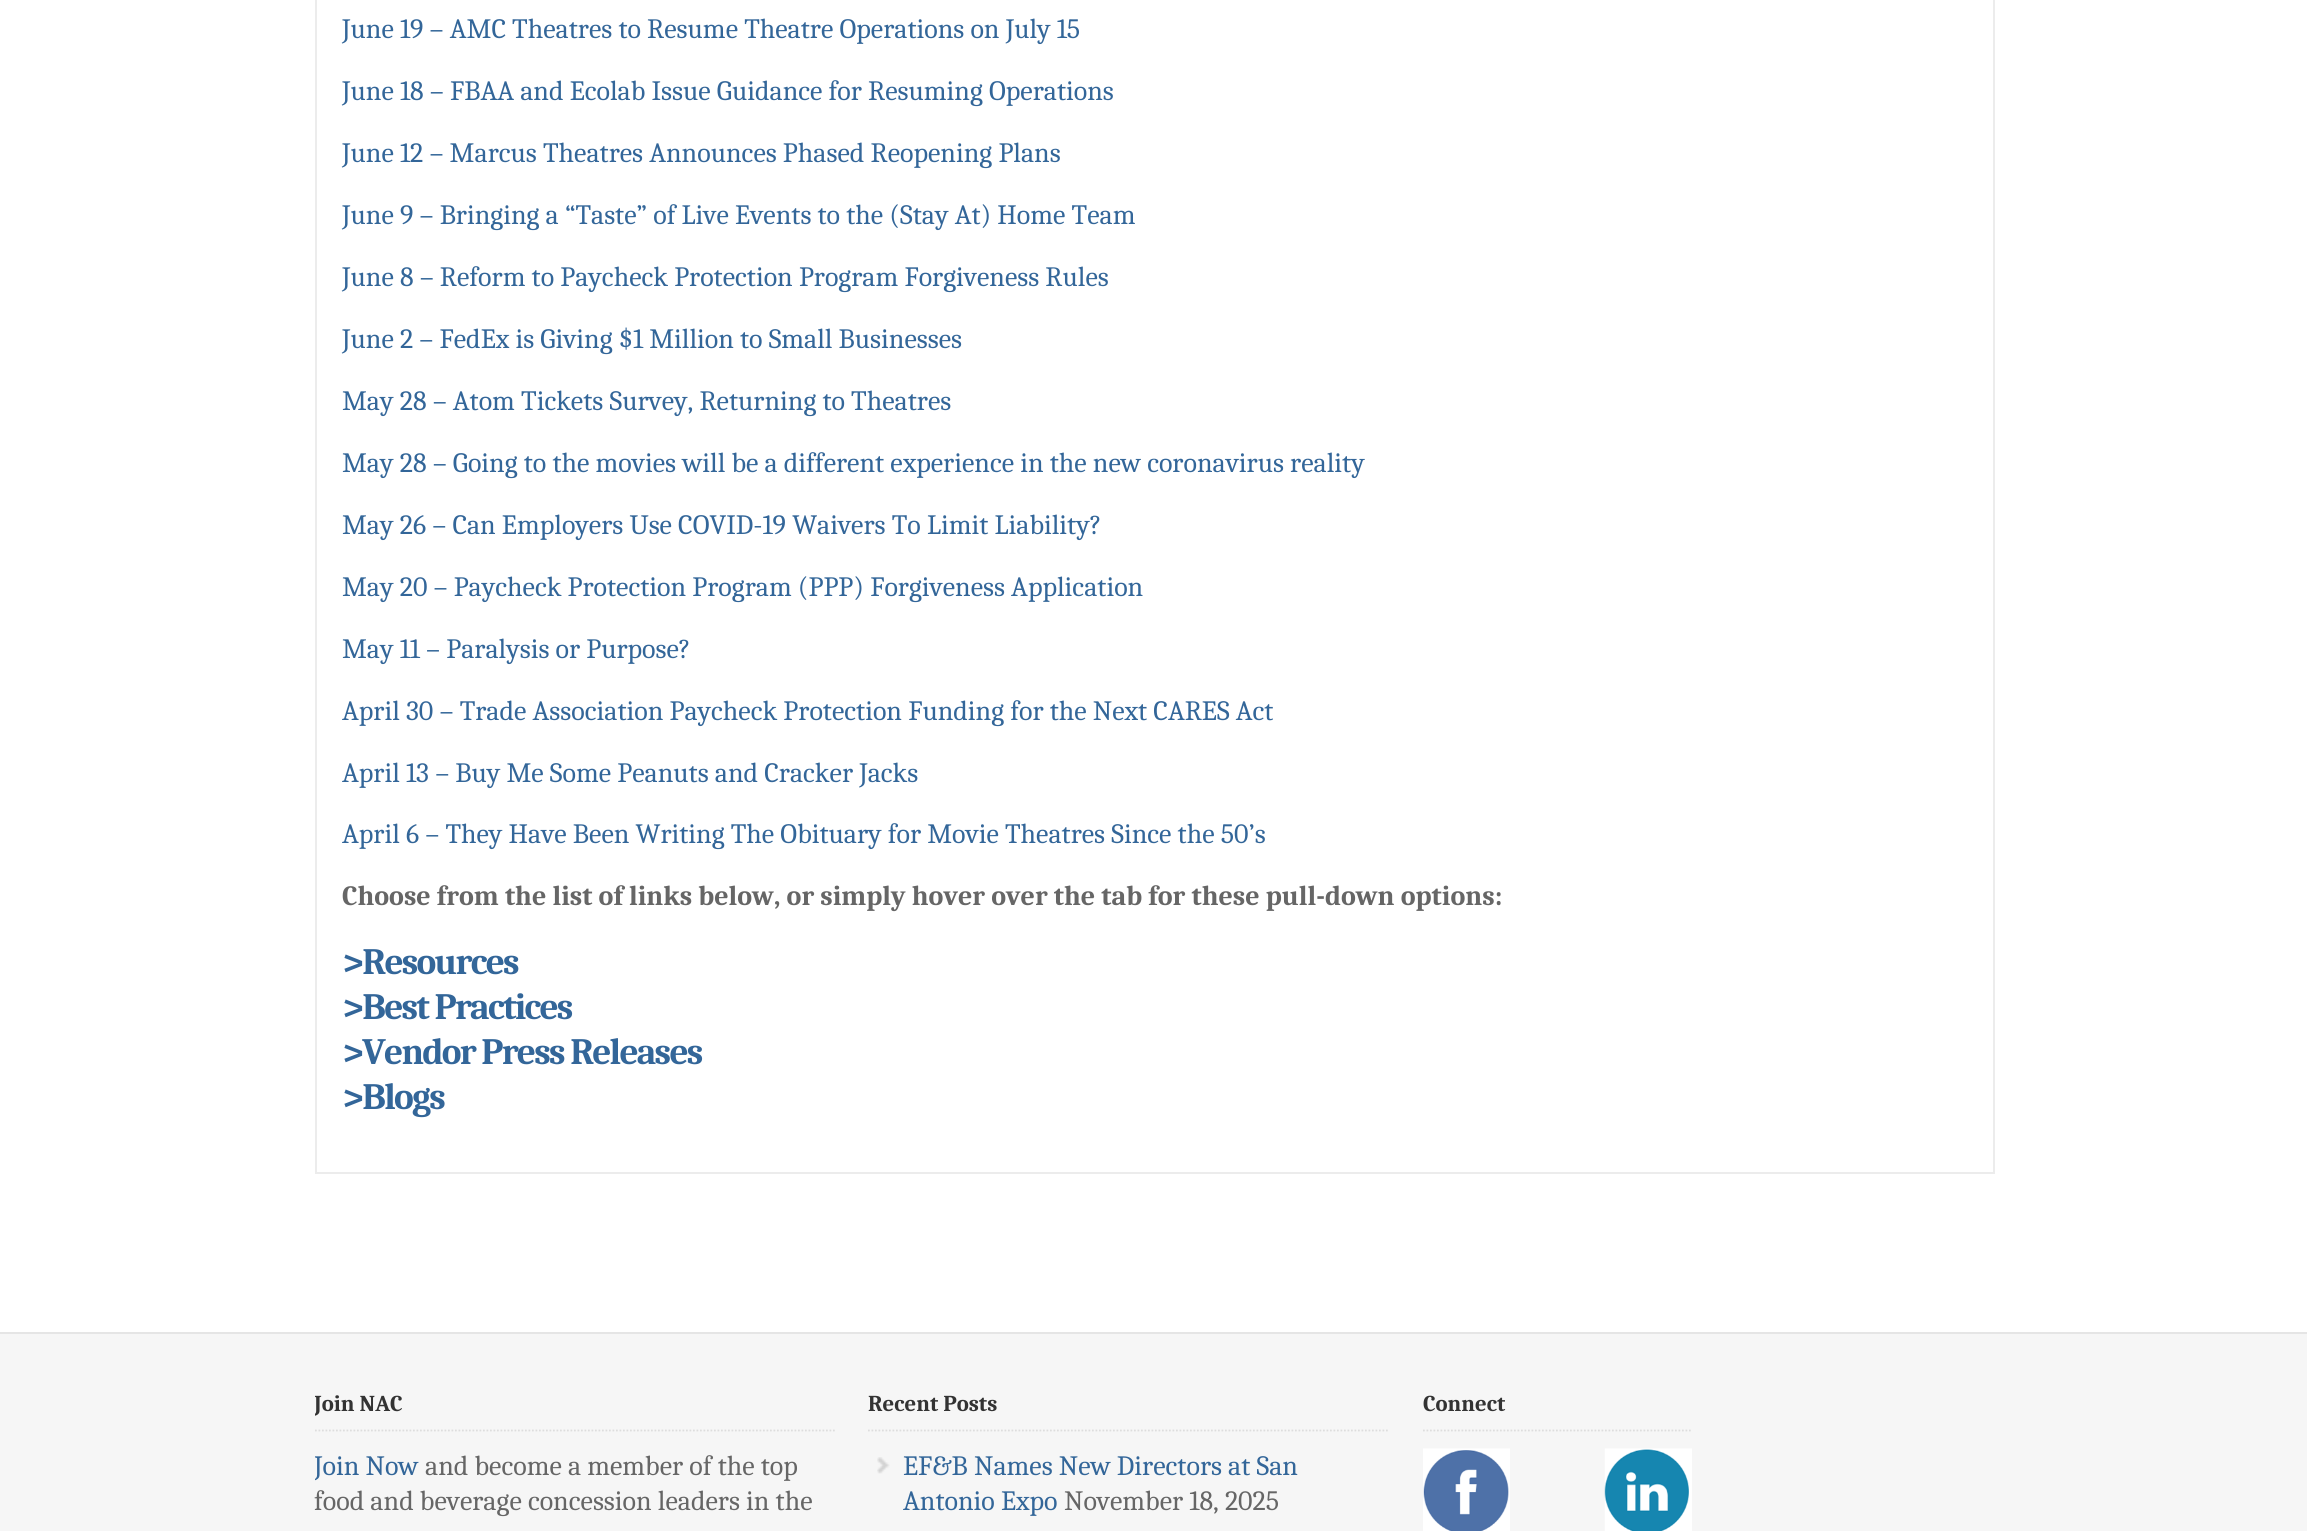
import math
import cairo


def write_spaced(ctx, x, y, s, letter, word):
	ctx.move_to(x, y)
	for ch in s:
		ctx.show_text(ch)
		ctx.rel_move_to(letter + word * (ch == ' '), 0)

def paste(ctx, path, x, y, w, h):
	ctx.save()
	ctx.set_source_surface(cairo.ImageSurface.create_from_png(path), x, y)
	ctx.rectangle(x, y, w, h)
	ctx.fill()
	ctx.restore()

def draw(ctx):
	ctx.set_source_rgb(1, 1, 1)
	ctx.paint()
	ctx.rectangle(316, -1, 1678, 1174)
	ctx.set_source_rgb(0.922, 0.922, 0.922)
	ctx.stroke()
	ctx.select_font_face('Caladea')
	ctx.set_font_size(28)
	ctx.set_source_rgb(0.2, 0.4, 0.6)
	for x, y, s in [
		(342, 38, 'June 19 – AMC Theatres to Resume Theatre Operations on July 15'),
		(342, 100, 'June 18 – FBAA and Ecolab Issue Guidance for Resuming Operations'),
		(342, 162, 'June 12 – Marcus Theatres Announces Phased Reopening Plans'),
		(342, 224, 'June 9 – Bringing a “Taste” of Live Events to the (Stay At) Home Team'),
		(342, 286, 'June 8 – Reform to Paycheck Protection Program Forgiveness Rules'),
		(342, 348, 'June 2 – FedEx is Giving $1 Million to Small Businesses'),
		(342, 410, 'May 28 – Atom Tickets Survey, Returning to Theatres'),
		(342, 472, 'May 28 – Going to the movies will be a different experience in the new coronavirus reality'),
		(342, 534, 'May 26 – Can Employers Use COVID-19 Waivers To Limit Liability?'),
		(342, 596, 'May 20 – Paycheck Protection Program (PPP) Forgiveness Application'),
		(342, 658, 'May 11 – Paralysis or Purpose?'),
		(342, 720, 'April 30 – Trade Association Paycheck Protection Funding for the Next CARES Act'),
		(342, 782, 'April 13 – Buy Me Some Peanuts and Cracker Jacks'),
		(342, 843, 'April 6 – They Have Been Writing The Obituary for Movie Theatres Since the 50’s'),
	]:
		ctx.move_to(x, y)
		ctx.show_text(s)
	ctx.select_font_face('Caladea', cairo.FONT_SLANT_NORMAL, cairo.FONT_WEIGHT_BOLD)
	ctx.set_source_rgb(0.4, 0.4, 0.4)
	ctx.move_to(342, 905)
	ctx.show_text('Choose from the list of links below, or simply hover over the tab for these pull-down options:')
	ctx.set_font_size(37.25)
	ctx.set_source_rgb(0.2, 0.4, 0.6)
	for x, y, s in [
		(342, 974, '>Resources'),
		(342, 1019, '>Best Practices'),
		(342, 1064, '>Vendor Press Releases'),
		(342, 1109, '>Blogs'),
	]:
		write_spaced(ctx, x, y, s, -1.75, 0)
	ctx.set_source_rgb(0.961, 0.961, 0.961)
	ctx.rectangle(0, 1334, 2307, 197)
	ctx.fill()
	ctx.set_source_rgb(0.898, 0.898, 0.898)
	ctx.rectangle(0, 1332, 2307, 2)
	ctx.fill()
	ctx.new_path()
	ctx.move_to(315, 1430.5)
	ctx.line_to(835, 1430.5)
	ctx.set_source_rgb(0.867, 0.867, 0.867)
	ctx.set_line_width(1.8)
	ctx.set_dash([1.75, 1.75])
	ctx.stroke()
	ctx.save()
	ctx.rectangle(315, 1386, 520, 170)
	ctx.clip()
	ctx.set_font_size(22.75)
	ctx.set_source_rgb(0.2, 0.2, 0.2)
	ctx.move_to(314, 1411)
	ctx.show_text('Join NAC')
	ctx.select_font_face('Caladea')
	ctx.set_font_size(28)
	ctx.set_source_rgb(0.2, 0.4, 0.6)
	ctx.move_to(314, 1475)
	ctx.show_text('Join Now')
	ctx.restore()
	ctx.select_font_face('Caladea')
	ctx.set_font_size(28)
	ctx.set_source_rgb(0.4, 0.4, 0.4)
	ctx.move_to(425, 1475)
	ctx.show_text('and become a member of the top')
	ctx.move_to(314, 1510)
	ctx.show_text('food and beverage concession leaders in the')
	ctx.new_path()
	ctx.move_to(868, 1430.5)
	ctx.line_to(1389.5, 1430.5)
	ctx.set_source_rgb(0.867, 0.867, 0.867)
	ctx.stroke()
	ctx.select_font_face('Caladea', cairo.FONT_SLANT_NORMAL, cairo.FONT_WEIGHT_BOLD)
	ctx.set_font_size(22.75)
	ctx.set_source_rgb(0.2, 0.2, 0.2)
	ctx.move_to(868, 1411)
	ctx.show_text('Recent Posts')
	paste(ctx, 'media/1.png', 877, 1457, 13, 17)
	ctx.select_font_face('Caladea')
	ctx.set_font_size(28)
	ctx.set_source_rgb(0.2, 0.4, 0.6)
	ctx.move_to(903, 1475)
	ctx.show_text('EF&B Names New Directors at San')
	ctx.move_to(903, 1510)
	ctx.show_text('Antonio Expo')
	ctx.set_source_rgb(0.4, 0.4, 0.4)
	ctx.move_to(1064, 1510)
	ctx.show_text('November 18, 2025')
	ctx.new_path()
	ctx.move_to(1423, 1430.5)
	ctx.line_to(1692, 1430.5)
	ctx.set_source_rgb(0.867, 0.867, 0.867)
	ctx.stroke()
	ctx.select_font_face('Caladea', cairo.FONT_SLANT_NORMAL, cairo.FONT_WEIGHT_BOLD)
	ctx.set_font_size(22.75)
	ctx.set_source_rgb(0.2, 0.2, 0.2)
	ctx.move_to(1423, 1411)
	ctx.show_text('Connect')
	paste(ctx, 'media/2.png', 1423, 1448, 87, 83)
	paste(ctx, 'media/3.png', 1604, 1448, 88, 83)


surface = cairo.ImageSurface(cairo.FORMAT_RGB24, 2307, 1531)
ctx = cairo.Context(surface)
options = cairo.FontOptions()
options.set_hint_metrics(cairo.HINT_METRICS_OFF)
options.set_hint_style(cairo.HINT_STYLE_NONE)
ctx.set_font_options(options)
ctx.set_miter_limit(4)
draw(ctx)
surface.write_to_png('image.png')
